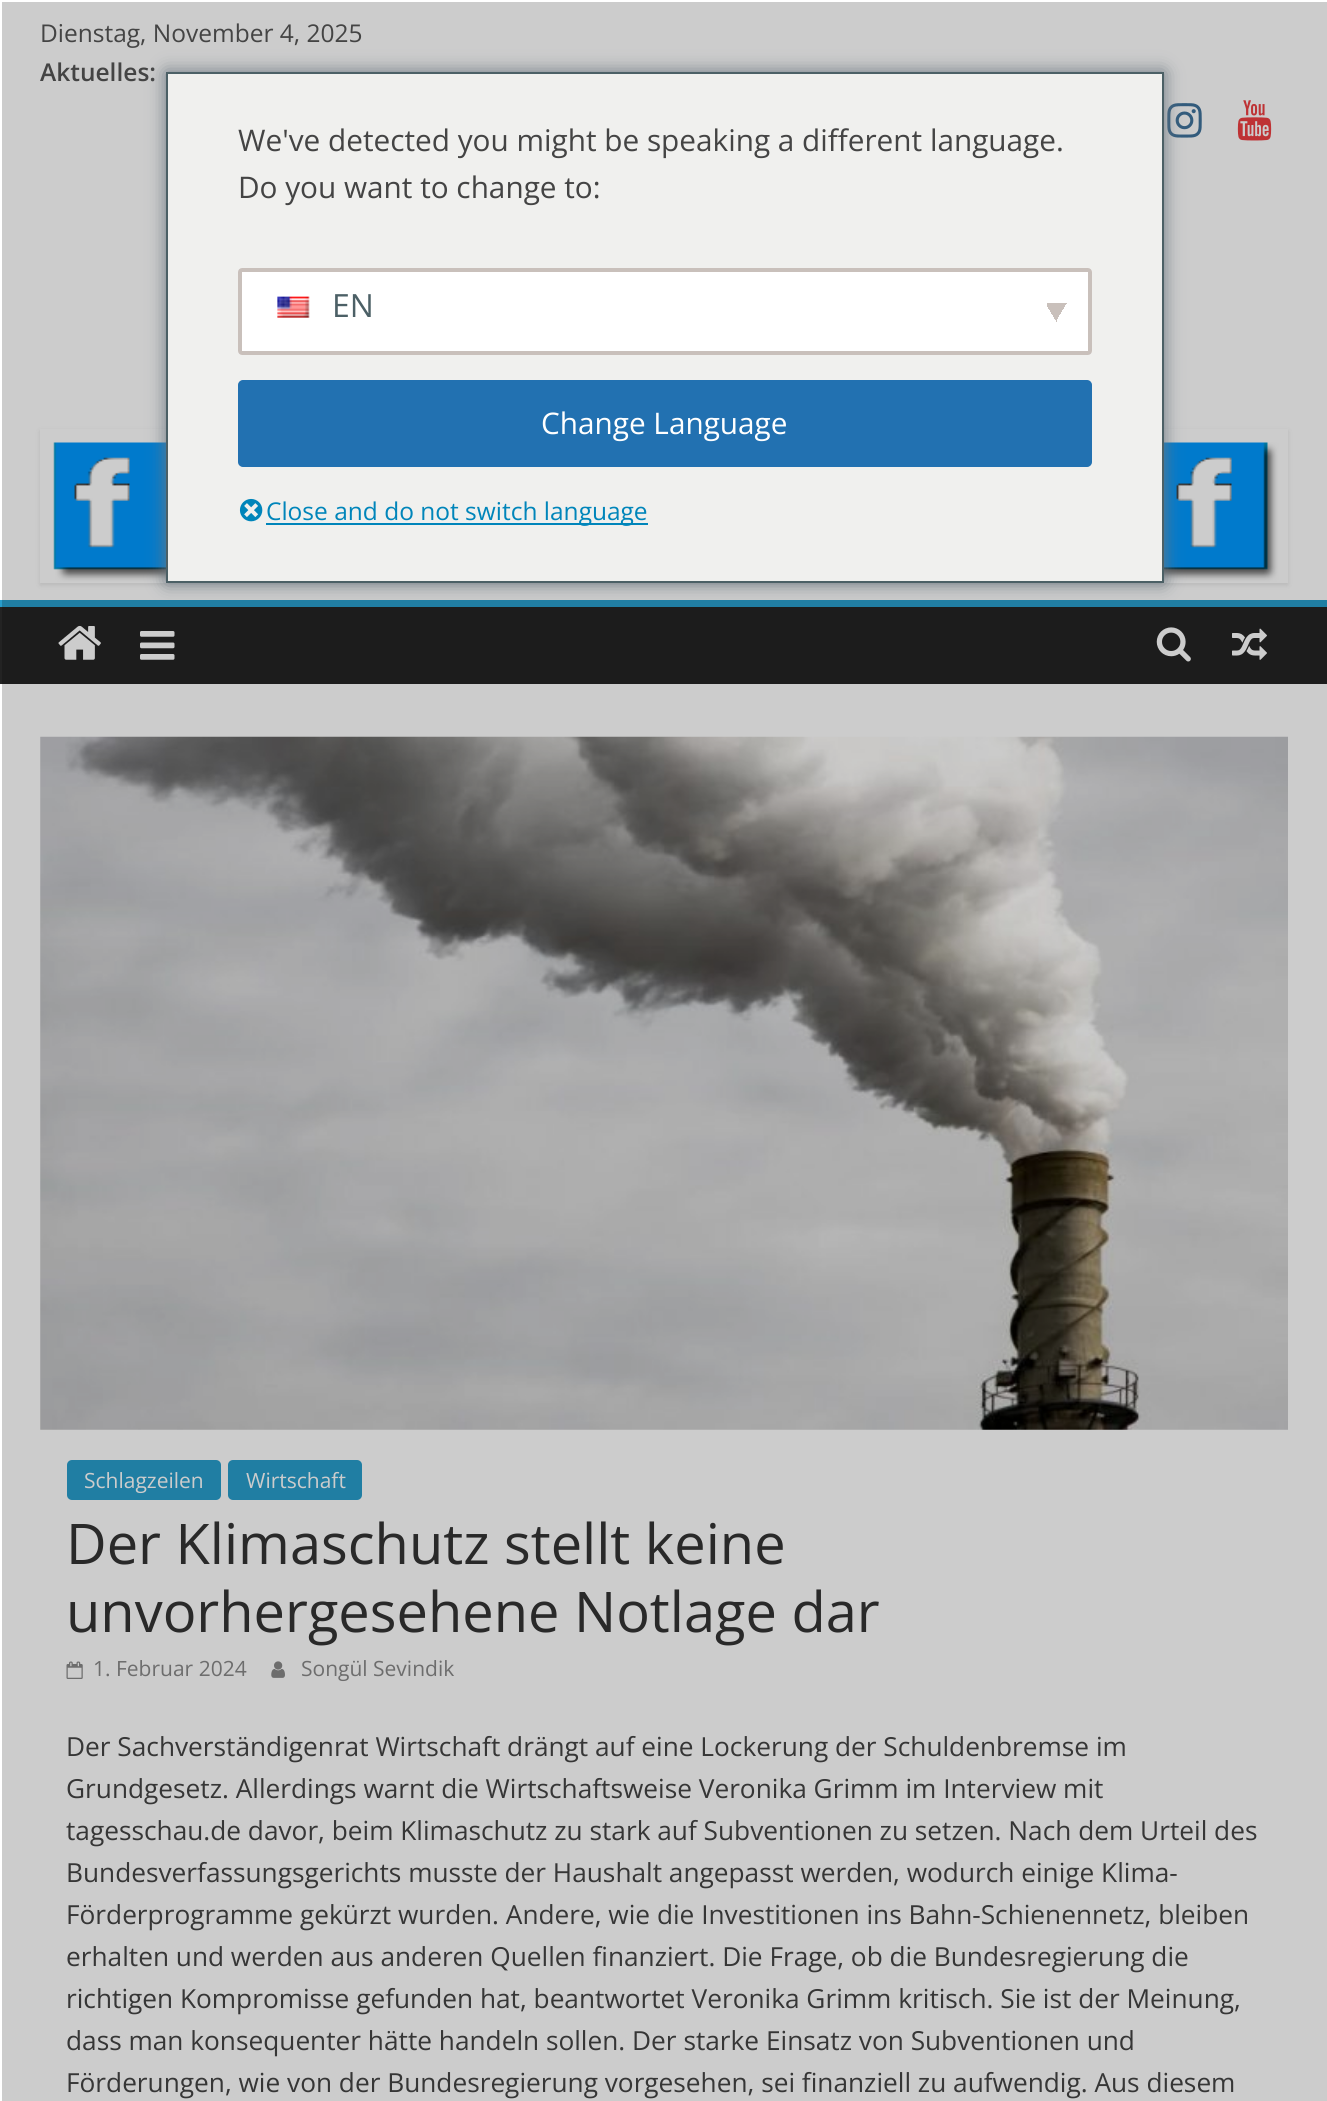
import math
import cairo


def round_path(ctx, x, y, w, h, r):
	ctx.new_sub_path()
	for i, (u, v) in enumerate([(x + w - r, y + h - r), (x + r, y + h - r), (x + r, y + r), (x + w - r, y + r)]):
		ctx.arc(u, v, r, i * math.pi / 2, (i + 1) * math.pi / 2)
	ctx.close_path()

def blur_box(ctx, x, y, w, h, r, blur, alpha):
	ctx.push_group_with_content(cairo.CONTENT_ALPHA)
	ctx.set_operator(cairo.OPERATOR_SOURCE)
	for i in range(15, -16, -2):
		e = blur * i / 6
		if min(w, h) + 2 * e > 0:
			ctx.set_source_rgba(0, 0, 0, alpha * math.erfc((i - 1) / 8.5) / 2)
			round_path(ctx, x - e, y - e, w + 2 * e, h + 2 * e, max(0, min(r + e + blur * .6, min(w, h) / 2 + e)))
			ctx.fill()
	ctx.mask(ctx.pop_group())

def paste(ctx, path, x, y, w, h):
	ctx.save()
	ctx.set_source_surface(cairo.ImageSurface.create_from_png(path), x, y)
	ctx.rectangle(x, y, w, h)
	ctx.fill()
	ctx.restore()

def draw(ctx):
	ctx.set_source_rgb(1, 1, 1)
	ctx.paint()
	ctx.set_source_rgb(0.8, 0.8, 0.8)
	ctx.rectangle(2, 2, 1325, 598)
	ctx.fill()
	ctx.select_font_face('Open Sans')
	ctx.set_font_size(24.5)
	ctx.set_source_rgb(0.267, 0.267, 0.267)
	ctx.move_to(40, 42)
	ctx.show_text('Dienstag, November 4, 2025')
	ctx.select_font_face('Open Sans SemiBold')
	ctx.move_to(40, 81)
	ctx.show_text('Aktuelles:')
	paste(ctx, 'media/1.png', 1167, 103, 35, 35)
	paste(ctx, 'media/2.png', 1237, 100, 35, 41)
	ctx.save()
	ctx.set_fill_rule(cairo.FILL_RULE_EVEN_ODD)
	ctx.new_path()
	ctx.move_to(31, 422)
	ctx.line_to(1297, 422)
	ctx.line_to(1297, 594)
	ctx.line_to(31, 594)
	ctx.close_path()
	ctx.move_to(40, 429)
	ctx.line_to(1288, 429)
	ctx.line_to(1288, 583)
	ctx.line_to(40, 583)
	ctx.close_path()
	ctx.clip()
	ctx.set_source_rgb(0, 0, 0)
	blur_box(ctx, 40, 431, 1248, 154, 0, 2.5, 0.1)
	ctx.restore()
	paste(ctx, 'media/3.png', 45, 442, 1238, 141)
	ctx.set_source_rgb(0.137, 0.137, 0.137)
	ctx.rectangle(0, 607, 2, 77)
	ctx.fill()
	ctx.set_source_rgb(0.11, 0.11, 0.11)
	ctx.rectangle(2, 607, 1325, 77)
	ctx.fill()
	ctx.set_source_rgb(0.157, 0.616, 0.8)
	ctx.rectangle(0, 600, 2, 7)
	ctx.fill()
	ctx.set_source_rgb(0.125, 0.494, 0.639)
	ctx.rectangle(2, 600, 1325, 7)
	ctx.fill()
	paste(ctx, 'media/4.png', 58, 625, 43, 35)
	paste(ctx, 'media/5.png', 140, 631, 35, 29)
	paste(ctx, 'media/6.png', 1156, 627, 35, 35)
	paste(ctx, 'media/7.png', 1232, 628, 35, 32)
	ctx.set_source_rgb(0.8, 0.8, 0.8)
	ctx.rectangle(2, 684, 1325, 1417)
	ctx.fill()
	paste(ctx, 'media/8.png', 40, 736, 1248, 694)
	ctx.set_source_rgb(0.125, 0.494, 0.639)
	round_path(ctx, 67, 1460, 154, 40, 5)
	ctx.fill()
	ctx.select_font_face('Open Sans')
	ctx.set_font_size(21)
	ctx.set_source_rgb(0.8, 0.8, 0.8)
	ctx.move_to(84, 1488)
	ctx.show_text('Schlagzeilen')
	ctx.set_source_rgb(0.125, 0.494, 0.639)
	round_path(ctx, 228, 1460, 134, 40, 5)
	ctx.fill()
	ctx.set_source_rgb(0.8, 0.8, 0.8)
	ctx.move_to(246, 1488)
	ctx.show_text('Wirtschaft')
	ctx.set_font_size(56)
	ctx.set_source_rgb(0.161, 0.161, 0.161)
	ctx.move_to(66, 1564)
	ctx.show_text('Der Klimaschutz stellt keine')
	ctx.move_to(66, 1632)
	ctx.show_text('unvorhergesehene Notlage dar')
	paste(ctx, 'media/9.png', 66, 1661, 17, 18)
	ctx.set_font_size(21)
	ctx.set_source_rgb(0.427, 0.427, 0.427)
	ctx.move_to(93, 1676)
	ctx.show_text('1. Februar 2024')
	paste(ctx, 'media/10.png', 271, 1661, 14, 17)
	ctx.move_to(301, 1676)
	ctx.show_text('Songül Sevindik')
	ctx.set_font_size(26.25)
	ctx.set_source_rgb(0.212, 0.212, 0.212)
	for x, y, s in [
		(66, 1756, 'Der Sachverständigenrat Wirtschaft drängt auf eine Lockerung der Schuldenbremse im'),
		(66, 1798, 'Grundgesetz. Allerdings warnt die Wirtschaftsweise Veronika Grimm im Interview mit'),
		(66, 1840, 'tagesschau.de davor, beim Klimaschutz zu stark auf Subventionen zu setzen. Nach dem Urteil des'),
		(66, 1882, 'Bundesverfassungsgerichts musste der Haushalt angepasst werden, wodurch einige Klima-'),
		(66, 1924, 'Förderprogramme gekürzt wurden. Andere, wie die Investitionen ins Bahn-Schienennetz, bleiben'),
		(66, 1966, 'erhalten und werden aus anderen Quellen finanziert. Die Frage, ob die Bundesregierung die'),
		(66, 2008, 'richtigen Kompromisse gefunden hat, beantwortet Veronika Grimm kritisch. Sie ist der Meinung,'),
		(66, 2050, 'dass man konsequenter hätte handeln sollen. Der starke Einsatz von Subventionen und'),
		(66, 2092, 'Förderungen, wie von der Bundesregierung vorgesehen, sei finanziell zu aufwendig. Aus diesem'),
	]:
		ctx.move_to(x, y)
		ctx.show_text(s)
	ctx.set_source_rgb(0.424, 0.467, 0.506)
	blur_box(ctx, 166, 72, 998, 511, 0, 9, 1)
	ctx.set_source_rgb(0.941, 0.941, 0.933)
	ctx.rectangle(167, 73, 996, 509)
	ctx.fill_preserve()
	ctx.set_source_rgb(0.298, 0.376, 0.4)
	ctx.stroke()
	ctx.set_font_size(29.75)
	ctx.set_source_rgb(0.267, 0.267, 0.267)
	ctx.move_to(238, 151)
	ctx.show_text('We\'ve detected you might be speaking a different language.')
	ctx.move_to(238, 198)
	ctx.show_text('Do you want to change to:')
	ctx.set_source_rgb(1, 1, 1)
	round_path(ctx, 238, 268, 854, 87, 4)
	ctx.fill()
	gradient = cairo.LinearGradient(1053, 307, 1070, 317)
	gradient.add_color_stop_rgba(0.5, 0.788, 0.753, 0.733, 1)
	gradient.add_color_stop_rgba(0.5, 1, 1, 1, 1)
	ctx.set_source(gradient)
	ctx.rectangle(1057, 303, 10, 16)
	ctx.fill()
	gradient = cairo.LinearGradient(1042, 317, 1059, 307)
	gradient.add_color_stop_rgba(0.5, 1, 1, 1, 1)
	gradient.add_color_stop_rgba(0.5, 0.788, 0.753, 0.733, 1)
	ctx.set_source(gradient)
	ctx.rectangle(1047, 303, 10, 19)
	ctx.fill()
	round_path(ctx, 240, 270, 850, 83, 2)
	ctx.set_source_rgb(0.788, 0.753, 0.733)
	ctx.set_line_width(4)
	ctx.stroke()
	paste(ctx, 'media/11.png', 277, 296, 33, 22)
	ctx.set_font_size(32)
	ctx.set_source_rgb(0.298, 0.376, 0.4)
	ctx.move_to(332, 317)
	ctx.show_text('EN')
	ctx.set_source_rgb(0.133, 0.443, 0.694)
	round_path(ctx, 239, 381, 852, 85, 4)
	ctx.fill_preserve()
	ctx.set_line_width(2)
	ctx.stroke()
	ctx.set_font_size(29.75)
	ctx.set_source_rgb(1, 1, 1)
	ctx.move_to(541, 434)
	ctx.show_text('Change Language')
	paste(ctx, 'media/12.png', 239, 498, 24, 24)
	ctx.set_source_rgb(0, 0.522, 0.729)
	ctx.rectangle(266, 523, 382, 2)
	ctx.fill()
	ctx.set_font_size(24.5)
	ctx.move_to(266, 520)
	ctx.show_text('Close and do not switch language')


surface = cairo.ImageSurface(cairo.FORMAT_RGB24, 1327, 2101)
ctx = cairo.Context(surface)
options = cairo.FontOptions()
options.set_hint_metrics(cairo.HINT_METRICS_OFF)
options.set_hint_style(cairo.HINT_STYLE_NONE)
ctx.set_font_options(options)
ctx.set_miter_limit(4)
draw(ctx)
surface.write_to_png('image.png')
